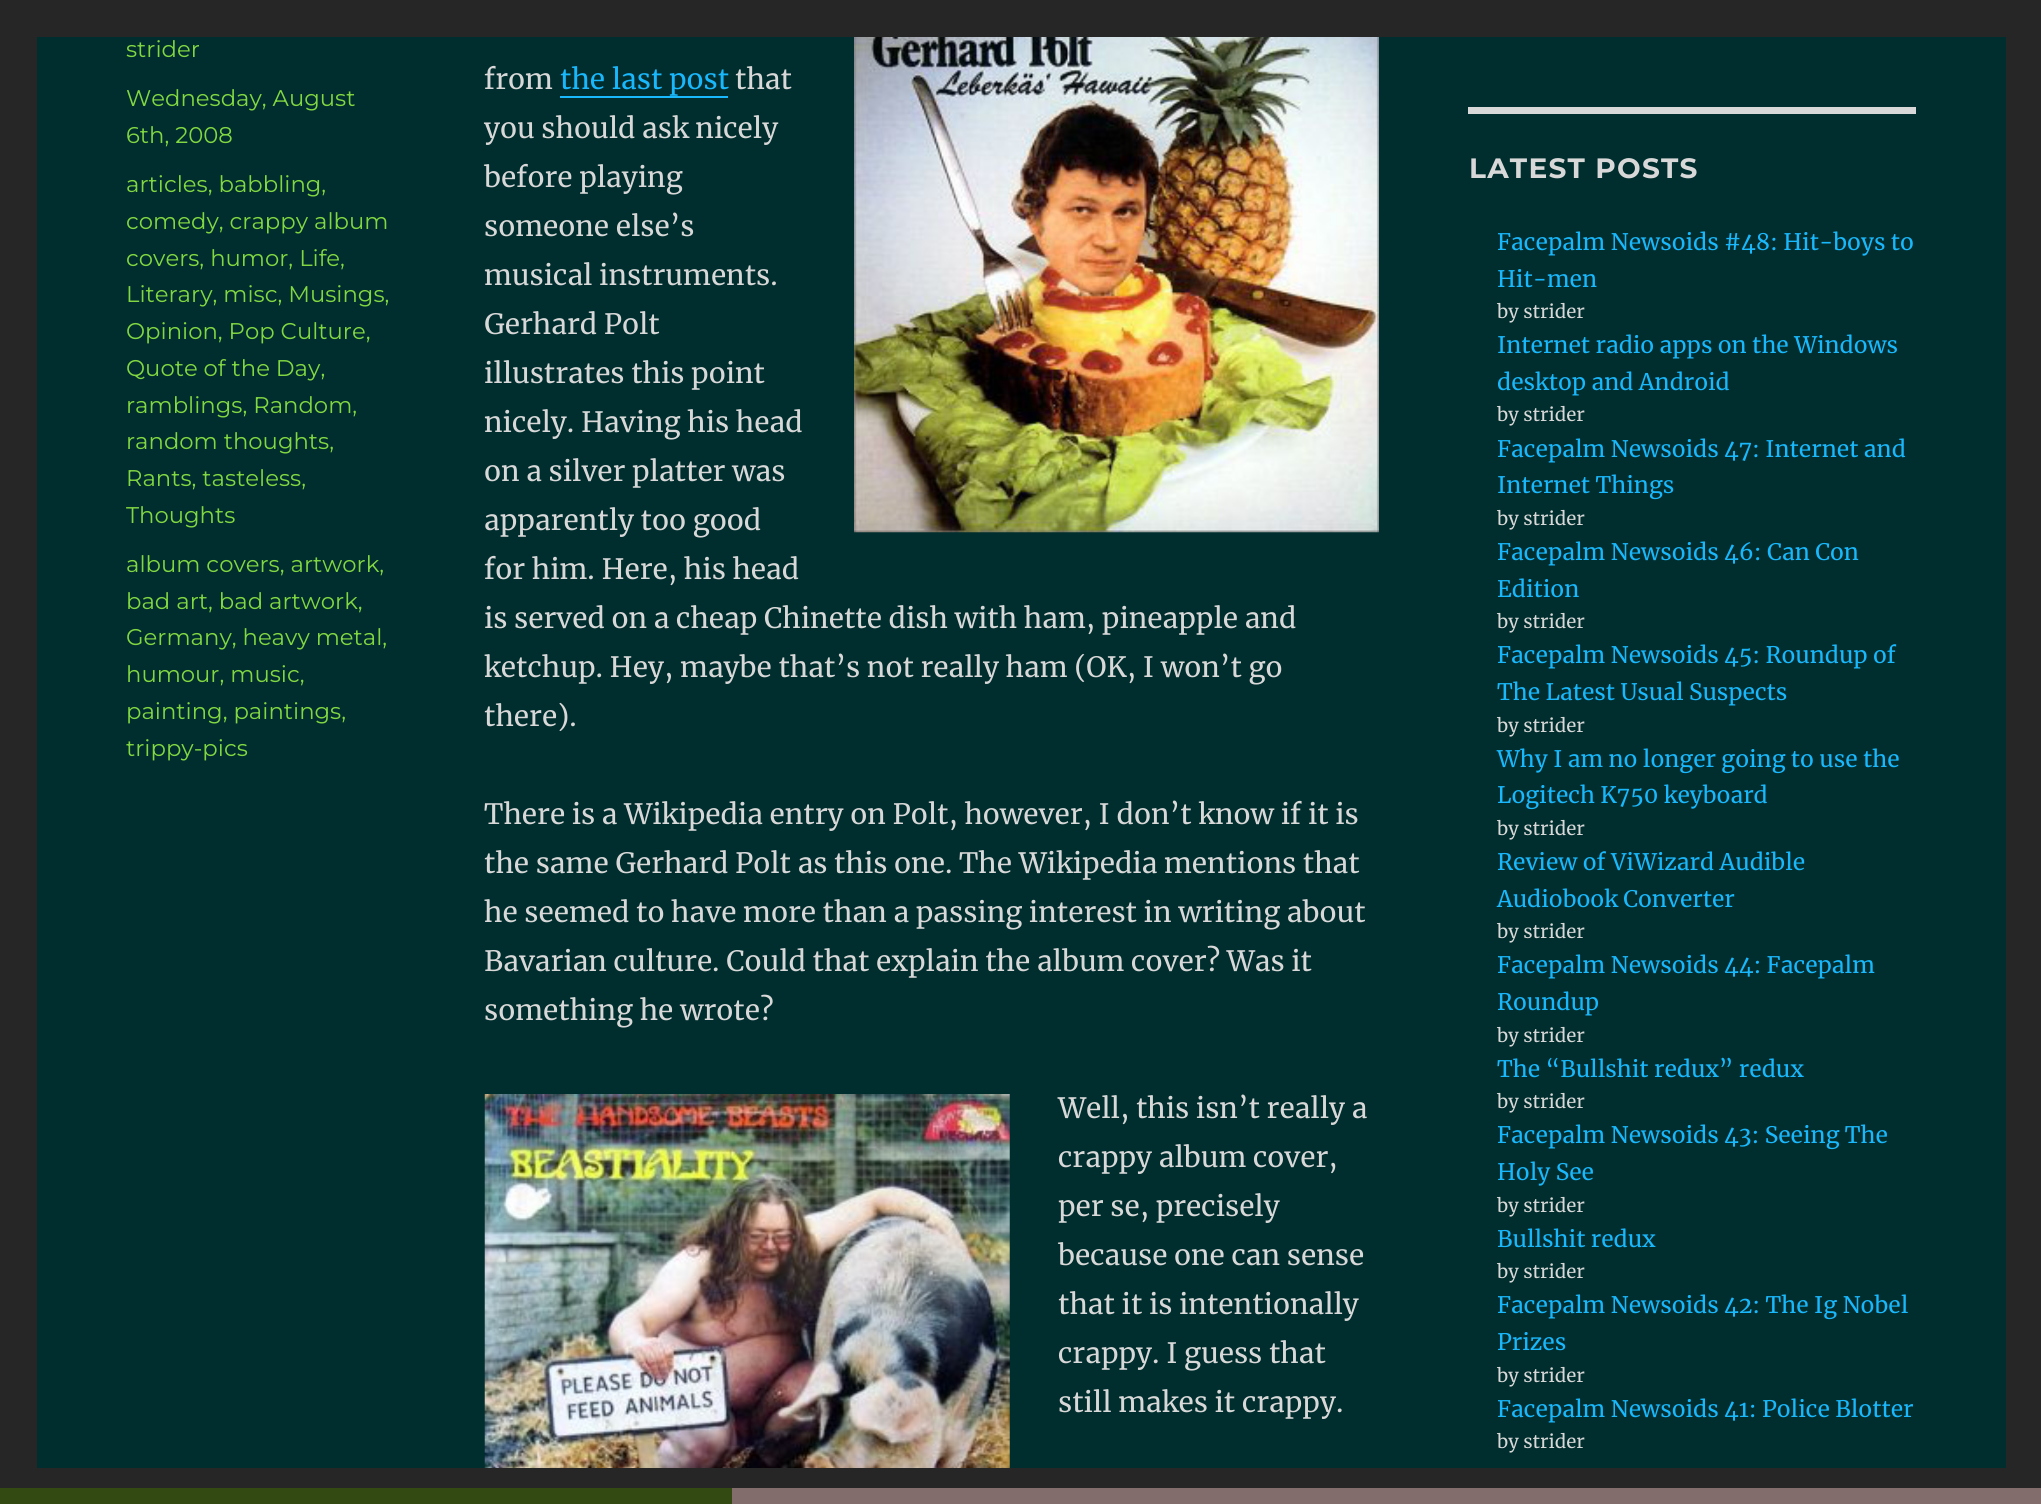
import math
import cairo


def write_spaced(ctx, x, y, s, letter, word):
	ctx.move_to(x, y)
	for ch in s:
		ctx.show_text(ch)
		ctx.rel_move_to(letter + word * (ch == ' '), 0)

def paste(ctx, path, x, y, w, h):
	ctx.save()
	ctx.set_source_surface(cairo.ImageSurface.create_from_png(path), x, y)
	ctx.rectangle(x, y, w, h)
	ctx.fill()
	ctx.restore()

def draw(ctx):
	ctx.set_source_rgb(0.149, 0.149, 0.149)
	ctx.paint()
	ctx.set_source_rgb(0, 0.176, 0.176)
	ctx.rectangle(37, 37, 1969, 1431)
	ctx.fill()
	ctx.select_font_face('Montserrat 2 Thin')
	ctx.set_font_size(22.75)
	ctx.set_source_rgb(0.506, 0.843, 0.259)
	for x, y, s in [
		(126, 57, 'strider'),
		(126, 106, 'Wednesday, August'),
		(126, 143, '6th, 2008'),
		(126, 192, 'articles, babbling,'),
		(126, 229, 'comedy, crappy album'),
		(126, 266, 'covers, humor, Life,'),
		(126, 302, 'Literary, misc, Musings,'),
		(126, 339, 'Opinion, Pop Culture,'),
		(126, 376, 'Quote of the Day,'),
		(126, 413, 'ramblings, Random,'),
		(126, 449, 'random thoughts,'),
		(126, 486, 'Rants, tasteless,'),
		(126, 523, 'Thoughts'),
		(126, 572, 'album covers, artwork,'),
		(126, 609, 'bad art, bad artwork,'),
		(126, 645, 'Germany, heavy metal,'),
		(126, 682, 'humour, music,'),
		(126, 719, 'painting, paintings,'),
		(126, 756, 'trippy-pics'),
	]:
		ctx.move_to(x, y)
		ctx.show_text(s)
	ctx.select_font_face('Merriweather')
	ctx.set_font_size(28)
	ctx.set_source_rgb(0.847, 0.847, 0.847)
	ctx.move_to(484, 89)
	ctx.show_text('from')
	ctx.set_source_rgb(0.098, 0.722, 0.988)
	ctx.move_to(560, 89)
	ctx.show_text('the last post')
	ctx.rectangle(560, 96, 168, 2)
	ctx.fill()
	ctx.set_source_rgb(0.847, 0.847, 0.847)
	ctx.move_to(735, 89)
	ctx.show_text('that')
	paste(ctx, 'media/1.png', 854, 37, 525, 496)
	for x, y, s in [
		(484, 138, 'you should ask nicely'),
		(484, 187, 'before playing'),
		(484, 236, 'someone else’s'),
		(484, 285, 'musical instruments.'),
		(484, 334, 'Gerhard Polt'),
		(484, 383, 'illustrates this point'),
		(484, 432, 'nicely. Having his head'),
		(484, 481, 'on a silver platter was'),
		(484, 530, 'apparently too good'),
		(484, 579, 'for him. Here, his head'),
		(484, 628, 'is served on a cheap Chinette dish with ham, pineapple and'),
		(484, 677, 'ketchup. Hey, maybe that’s not really ham (OK, I won’t go'),
		(484, 726, 'there).'),
		(484, 824, 'There is a Wikipedia entry on Polt, however, I don’t know if it is'),
		(484, 873, 'the same Gerhard Polt as this one. The Wikipedia mentions that'),
		(484, 922, 'he seemed to have more than a passing interest in writing about'),
		(484, 971, 'Bavarian culture. Could that explain the album cover? Was it'),
		(484, 1020, 'something he wrote?'),
	]:
		ctx.move_to(x, y)
		ctx.show_text(s)
	paste(ctx, 'media/2.png', 484, 1094, 526, 374)
	for x, y, s in [
		(1058, 1118, 'Well, this isn’t really a'),
		(1058, 1167, 'crappy album cover,'),
		(1058, 1216, 'per se, precisely'),
		(1058, 1265, 'because one can sense'),
		(1058, 1314, 'that it is intentionally'),
		(1058, 1363, 'crappy. I guess that'),
		(1058, 1412, 'still makes it crappy.'),
	]:
		ctx.move_to(x, y)
		ctx.show_text(s)
	ctx.rectangle(1468, 107, 448, 7)
	ctx.fill()
	ctx.select_font_face('Montserrat Thin')
	write_spaced(ctx, 1469, 178, 'LATEST POSTS', 1.25, 0)
	ctx.select_font_face('Merriweather')
	ctx.set_font_size(22.75)
	ctx.set_source_rgb(0.098, 0.722, 0.988)
	ctx.move_to(1497, 250)
	ctx.show_text('Facepalm Newsoids #48: Hit-boys to')
	ctx.move_to(1497, 287)
	ctx.show_text('Hit-men')
	ctx.set_font_size(18.5)
	ctx.set_source_rgb(0.847, 0.847, 0.847)
	ctx.move_to(1497, 318)
	ctx.show_text('by strider')
	ctx.set_font_size(22.75)
	ctx.set_source_rgb(0.098, 0.722, 0.988)
	ctx.move_to(1497, 353)
	ctx.show_text('Internet radio apps on the Windows')
	ctx.move_to(1497, 390)
	ctx.show_text('desktop and Android')
	ctx.set_font_size(18.5)
	ctx.set_source_rgb(0.847, 0.847, 0.847)
	ctx.move_to(1497, 421)
	ctx.show_text('by strider')
	ctx.set_font_size(22.75)
	ctx.set_source_rgb(0.098, 0.722, 0.988)
	ctx.move_to(1497, 457)
	ctx.show_text('Facepalm Newsoids 47: Internet and')
	ctx.move_to(1497, 493)
	ctx.show_text('Internet Things')
	ctx.set_font_size(18.5)
	ctx.set_source_rgb(0.847, 0.847, 0.847)
	ctx.move_to(1497, 525)
	ctx.show_text('by strider')
	ctx.set_font_size(22.75)
	ctx.set_source_rgb(0.098, 0.722, 0.988)
	ctx.move_to(1497, 560)
	ctx.show_text('Facepalm Newsoids 46: Can Con')
	ctx.move_to(1497, 597)
	ctx.show_text('Edition')
	ctx.set_font_size(18.5)
	ctx.set_source_rgb(0.847, 0.847, 0.847)
	ctx.move_to(1497, 628)
	ctx.show_text('by strider')
	ctx.set_font_size(22.75)
	ctx.set_source_rgb(0.098, 0.722, 0.988)
	ctx.move_to(1497, 663)
	ctx.show_text('Facepalm Newsoids 45: Roundup of')
	ctx.move_to(1497, 700)
	ctx.show_text('The Latest Usual Suspects')
	ctx.set_font_size(18.5)
	ctx.set_source_rgb(0.847, 0.847, 0.847)
	ctx.move_to(1497, 732)
	ctx.show_text('by strider')
	ctx.set_font_size(22.75)
	ctx.set_source_rgb(0.098, 0.722, 0.988)
	ctx.move_to(1497, 767)
	ctx.show_text('Why I am no longer going to use the')
	ctx.move_to(1497, 803)
	ctx.show_text('Logitech K750 keyboard')
	ctx.set_font_size(18.5)
	ctx.set_source_rgb(0.847, 0.847, 0.847)
	ctx.move_to(1497, 835)
	ctx.show_text('by strider')
	ctx.set_font_size(22.75)
	ctx.set_source_rgb(0.098, 0.722, 0.988)
	ctx.move_to(1497, 870)
	ctx.show_text('Review of ViWizard Audible')
	ctx.move_to(1497, 907)
	ctx.show_text('Audiobook Converter')
	ctx.set_font_size(18.5)
	ctx.set_source_rgb(0.847, 0.847, 0.847)
	ctx.move_to(1497, 938)
	ctx.show_text('by strider')
	ctx.set_font_size(22.75)
	ctx.set_source_rgb(0.098, 0.722, 0.988)
	ctx.move_to(1497, 973)
	ctx.show_text('Facepalm Newsoids 44: Facepalm')
	ctx.move_to(1497, 1010)
	ctx.show_text('Roundup')
	ctx.set_font_size(18.5)
	ctx.set_source_rgb(0.847, 0.847, 0.847)
	ctx.move_to(1497, 1042)
	ctx.show_text('by strider')
	ctx.set_font_size(22.75)
	ctx.set_source_rgb(0.098, 0.722, 0.988)
	ctx.move_to(1497, 1077)
	ctx.show_text('The “Bullshit redux” redux')
	ctx.set_font_size(18.5)
	ctx.set_source_rgb(0.847, 0.847, 0.847)
	ctx.move_to(1497, 1108)
	ctx.show_text('by strider')
	ctx.set_font_size(22.75)
	ctx.set_source_rgb(0.098, 0.722, 0.988)
	ctx.move_to(1497, 1143)
	ctx.show_text('Facepalm Newsoids 43: Seeing The')
	ctx.move_to(1497, 1180)
	ctx.show_text('Holy See')
	ctx.set_font_size(18.5)
	ctx.set_source_rgb(0.847, 0.847, 0.847)
	ctx.move_to(1497, 1212)
	ctx.show_text('by strider')
	ctx.set_font_size(22.75)
	ctx.set_source_rgb(0.098, 0.722, 0.988)
	ctx.move_to(1497, 1247)
	ctx.show_text('Bullshit redux')
	ctx.set_font_size(18.5)
	ctx.set_source_rgb(0.847, 0.847, 0.847)
	ctx.move_to(1497, 1278)
	ctx.show_text('by strider')
	ctx.set_font_size(22.75)
	ctx.set_source_rgb(0.098, 0.722, 0.988)
	ctx.move_to(1497, 1313)
	ctx.show_text('Facepalm Newsoids 42: The Ig Nobel')
	ctx.move_to(1497, 1350)
	ctx.show_text('Prizes')
	ctx.set_font_size(18.5)
	ctx.set_source_rgb(0.847, 0.847, 0.847)
	ctx.move_to(1497, 1382)
	ctx.show_text('by strider')
	ctx.set_font_size(22.75)
	ctx.set_source_rgb(0.098, 0.722, 0.988)
	ctx.move_to(1497, 1417)
	ctx.show_text('Facepalm Newsoids 41: Police Blotter')
	ctx.set_font_size(18.5)
	ctx.set_source_rgb(0.847, 0.847, 0.847)
	ctx.move_to(1497, 1448)
	ctx.show_text('by strider')
	ctx.set_source_rgb(0.51, 0.424, 0.424)
	ctx.rectangle(732, 1488, 1309, 16)
	ctx.fill()
	ctx.set_source_rgb(0.2, 0.29, 0.075)
	ctx.rectangle(0, 1488, 732, 16)
	ctx.fill()


surface = cairo.ImageSurface(cairo.FORMAT_RGB24, 2041, 1504)
ctx = cairo.Context(surface)
options = cairo.FontOptions()
options.set_hint_metrics(cairo.HINT_METRICS_OFF)
options.set_hint_style(cairo.HINT_STYLE_NONE)
ctx.set_font_options(options)
ctx.set_miter_limit(4)
draw(ctx)
surface.write_to_png('image.png')
